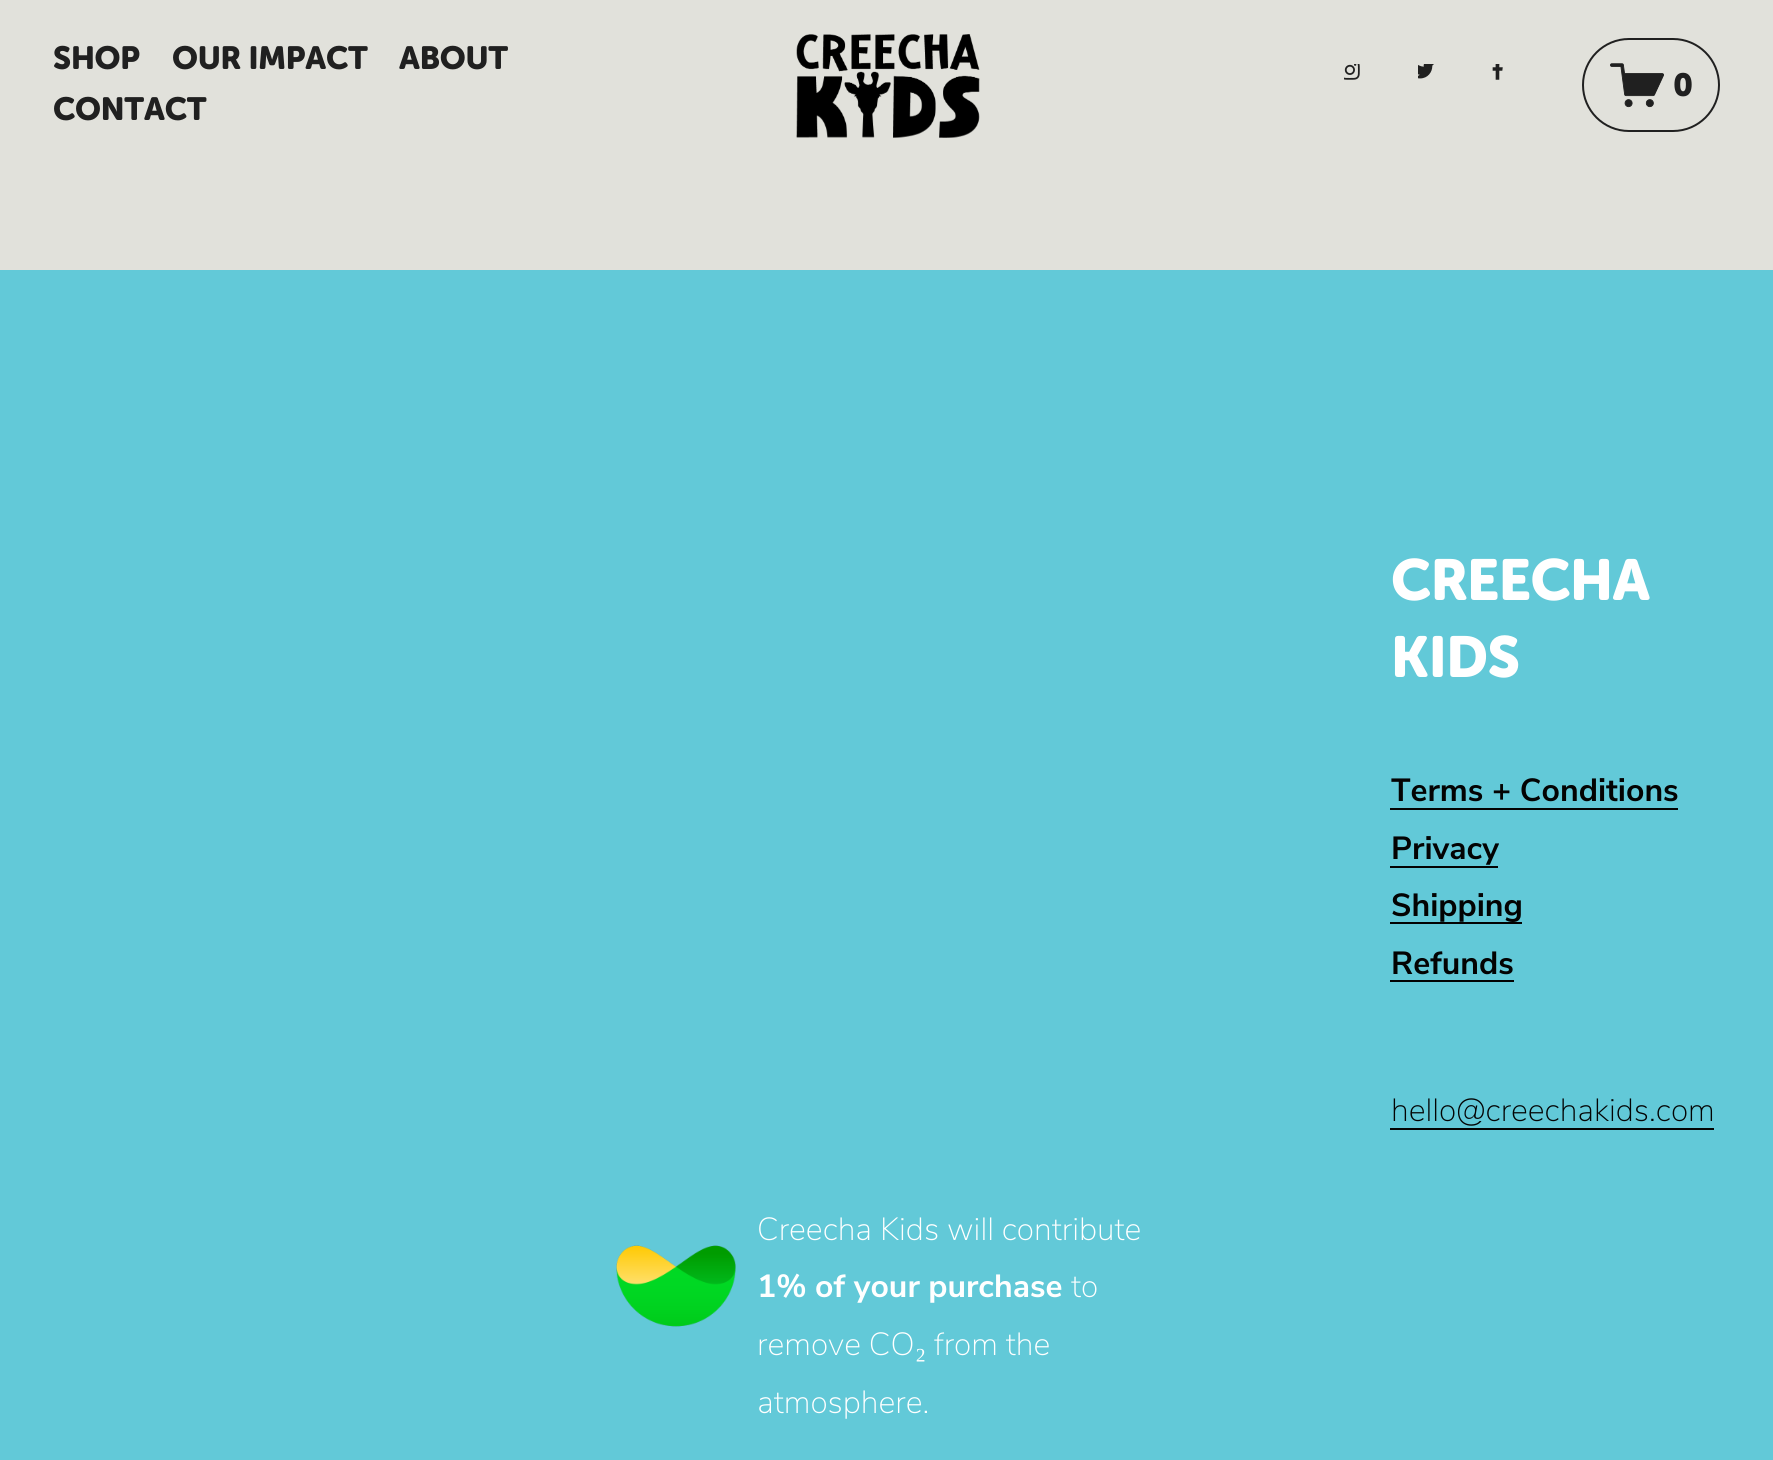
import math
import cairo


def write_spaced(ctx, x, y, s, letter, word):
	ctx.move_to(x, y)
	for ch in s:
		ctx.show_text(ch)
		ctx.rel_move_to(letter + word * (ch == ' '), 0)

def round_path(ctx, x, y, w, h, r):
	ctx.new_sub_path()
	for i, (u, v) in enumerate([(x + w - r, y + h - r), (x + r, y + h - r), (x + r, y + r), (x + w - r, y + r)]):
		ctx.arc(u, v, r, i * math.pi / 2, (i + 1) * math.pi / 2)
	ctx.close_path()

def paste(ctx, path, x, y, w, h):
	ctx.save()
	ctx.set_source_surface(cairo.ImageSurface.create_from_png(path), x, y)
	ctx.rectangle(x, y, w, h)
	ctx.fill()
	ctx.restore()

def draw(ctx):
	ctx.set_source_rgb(0.882, 0.882, 0.859)
	ctx.paint()
	ctx.select_font_face('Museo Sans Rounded', cairo.FONT_SLANT_NORMAL, cairo.FONT_WEIGHT_BOLD)
	ctx.set_font_size(32)
	ctx.set_source_rgb(0.125, 0.125, 0.125)
	for x, y, s in [
		(53, 69, 'SHOP'),
		(172, 69, 'OUR IMPACT'),
		(399, 69, 'ABOUT'),
		(53, 120, 'CONTACT'),
	]:
		write_spaced(ctx, x, y, s, -0.25, 0)
	paste(ctx, 'media/1.png', 796, 34, 184, 104)
	paste(ctx, 'media/2.png', 1344, 64, 16, 16)
	paste(ctx, 'media/3.png', 1418, 64, 16, 15)
	paste(ctx, 'media/4.png', 1492, 64, 11, 16)
	round_path(ctx, 1583, 39, 136, 92, 46)
	ctx.stroke()
	paste(ctx, 'media/5.png', 1610, 63, 54, 45)
	write_spaced(ctx, 1673, 96, '0', -0.25, 0)
	ctx.set_source_rgb(0.384, 0.788, 0.847)
	ctx.rectangle(0, 270, 1773, 1190)
	ctx.fill()
	ctx.set_font_size(57.5)
	ctx.set_source_rgb(1, 1, 1)
	write_spaced(ctx, 1391, 600, 'CREECHA', -0.5, 0)
	write_spaced(ctx, 1391, 677, 'KIDS', -0.5, 0)
	ctx.select_font_face('Nunito Sans', cairo.FONT_SLANT_NORMAL, cairo.FONT_WEIGHT_BOLD)
	ctx.set_font_size(32)
	ctx.set_source_rgb(0.012, 0.012, 0.012)
	ctx.move_to(1391, 801)
	ctx.show_text('Terms + Conditions')
	ctx.rectangle(1390, 808, 288, 2)
	ctx.fill()
	ctx.move_to(1391, 859)
	ctx.show_text('Privacy')
	ctx.rectangle(1390, 866, 108, 2)
	ctx.fill()
	ctx.move_to(1391, 916)
	ctx.show_text('Shipping')
	ctx.rectangle(1390, 922, 132, 2)
	ctx.fill()
	ctx.move_to(1391, 974)
	ctx.show_text('Refunds')
	ctx.rectangle(1390, 980, 124, 2)
	ctx.fill()
	ctx.select_font_face('Nunito Sans ExtraLight')
	ctx.move_to(1391, 1121)
	ctx.show_text('hello@creechakids.com')
	ctx.rectangle(1390, 1128, 324, 2)
	ctx.fill()
	paste(ctx, 'media/6.png', 616, 1245, 120, 82)
	ctx.set_source_rgb(1, 1, 1)
	ctx.move_to(757, 1240)
	ctx.show_text('Creecha Kids will contribute')
	ctx.select_font_face('Nunito Sans', cairo.FONT_SLANT_NORMAL, cairo.FONT_WEIGHT_BOLD)
	ctx.move_to(757, 1297)
	ctx.show_text('1% of your purchase')
	ctx.select_font_face('Nunito Sans ExtraLight')
	ctx.move_to(1071, 1297)
	ctx.show_text('to')
	ctx.move_to(757, 1355)
	ctx.show_text('remove CO')
	ctx.select_font_face('Liberation Serif')
	ctx.move_to(915, 1355)
	ctx.show_text('₂')
	ctx.select_font_face('Nunito Sans ExtraLight')
	ctx.move_to(934, 1355)
	ctx.show_text('from the')
	ctx.move_to(757, 1413)
	ctx.show_text('atmosphere.')


surface = cairo.ImageSurface(cairo.FORMAT_RGB24, 1773, 1460)
ctx = cairo.Context(surface)
options = cairo.FontOptions()
options.set_hint_metrics(cairo.HINT_METRICS_OFF)
options.set_hint_style(cairo.HINT_STYLE_NONE)
ctx.set_font_options(options)
ctx.set_miter_limit(4)
draw(ctx)
surface.write_to_png('image.png')
